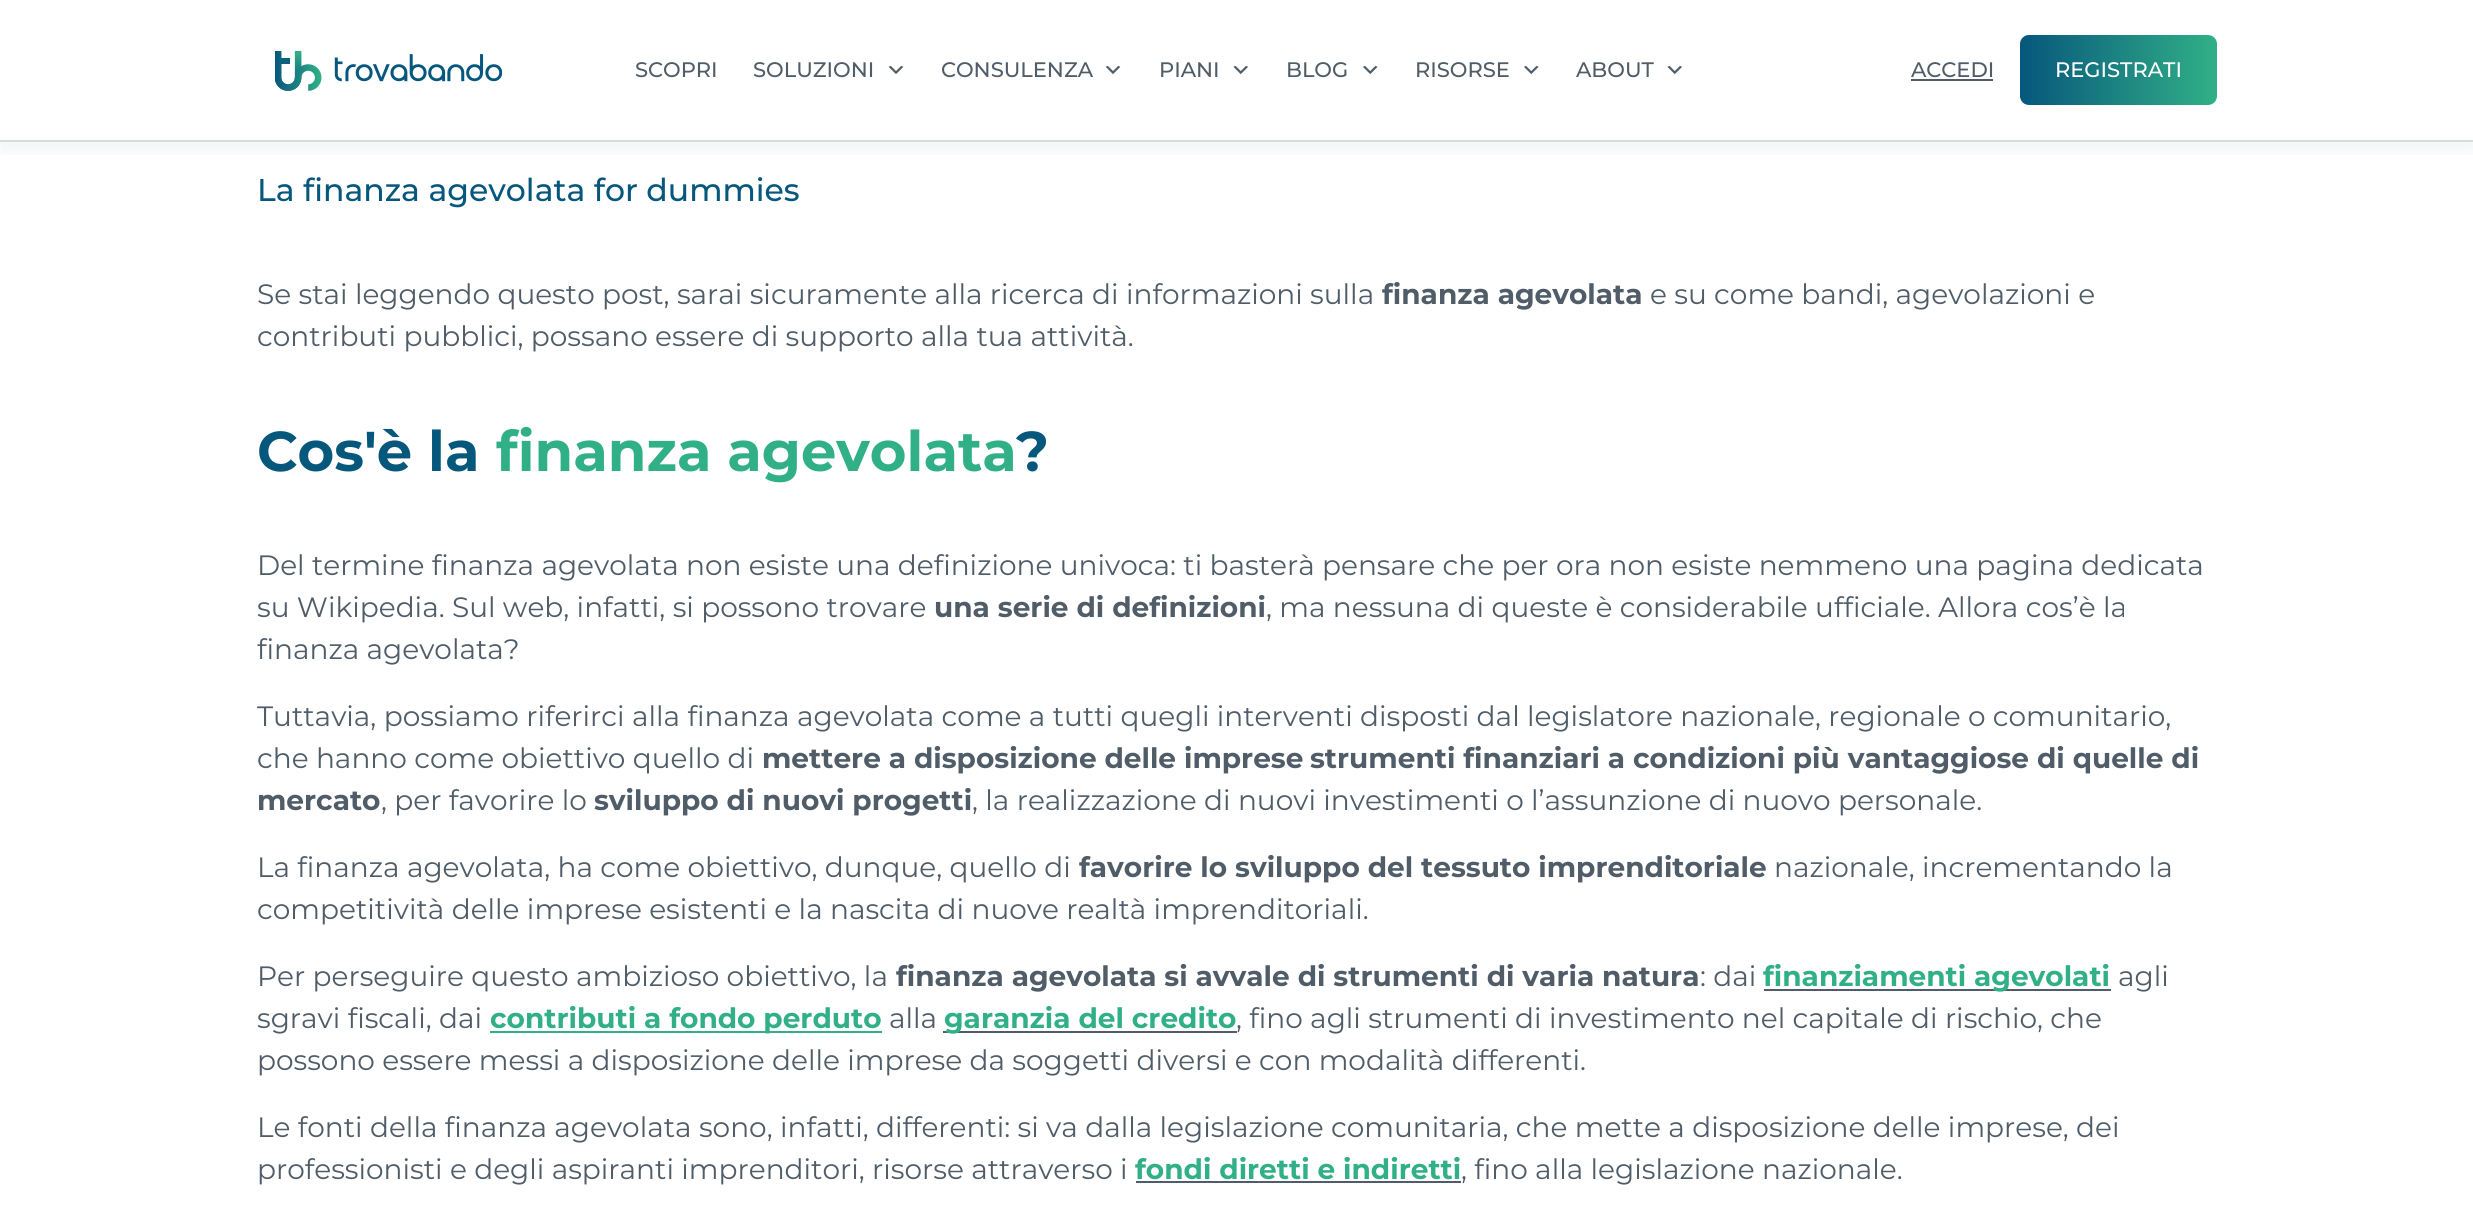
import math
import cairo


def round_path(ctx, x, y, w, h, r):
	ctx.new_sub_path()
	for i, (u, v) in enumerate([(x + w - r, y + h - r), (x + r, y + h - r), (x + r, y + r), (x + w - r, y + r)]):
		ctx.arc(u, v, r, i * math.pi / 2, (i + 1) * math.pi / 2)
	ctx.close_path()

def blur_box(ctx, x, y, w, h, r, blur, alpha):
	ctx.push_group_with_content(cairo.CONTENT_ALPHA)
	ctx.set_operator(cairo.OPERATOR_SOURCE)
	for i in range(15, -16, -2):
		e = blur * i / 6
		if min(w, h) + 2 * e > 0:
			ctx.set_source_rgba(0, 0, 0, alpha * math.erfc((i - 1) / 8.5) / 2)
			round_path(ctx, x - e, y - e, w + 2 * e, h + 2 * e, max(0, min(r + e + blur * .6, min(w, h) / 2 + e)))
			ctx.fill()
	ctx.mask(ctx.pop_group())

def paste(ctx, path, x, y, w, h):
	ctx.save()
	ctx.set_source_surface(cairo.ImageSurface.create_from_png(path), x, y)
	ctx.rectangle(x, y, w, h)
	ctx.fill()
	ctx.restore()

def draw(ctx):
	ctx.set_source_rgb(1, 1, 1)
	ctx.paint()
	ctx.save()
	ctx.rectangle(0, 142, 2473, 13)
	ctx.clip()
	ctx.set_source_rgb(0.027, 0.341, 0.486)
	blur_box(ctx, 0, 9, 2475, 142, 0, 9, 0.06)
	ctx.restore()
	ctx.set_source_rgb(0.855, 0.855, 0.855)
	ctx.rectangle(0, 140, 2473, 2)
	ctx.fill()
	paste(ctx, 'media/1.png', 275, 51, 227, 40)
	ctx.select_font_face('Montserrat Medium')
	ctx.set_font_size(21)
	ctx.set_source_rgb(0.314, 0.365, 0.408)
	ctx.move_to(635, 77)
	ctx.show_text('SCOPRI')
	ctx.move_to(753, 77)
	ctx.show_text('SOLUZIONI')
	paste(ctx, 'media/2.png', 888, 65, 16, 9)
	ctx.move_to(941, 77)
	ctx.show_text('CONSULENZA')
	paste(ctx, 'media/2.png', 1105, 65, 16, 9)
	ctx.move_to(1159, 77)
	ctx.show_text('PIANI')
	paste(ctx, 'media/3.png', 1233, 65, 15, 10)
	ctx.move_to(1286, 77)
	ctx.show_text('BLOG')
	paste(ctx, 'media/4.png', 1363, 65, 15, 10)
	ctx.move_to(1415, 77)
	ctx.show_text('RISORSE')
	paste(ctx, 'media/4.png', 1524, 65, 15, 10)
	ctx.move_to(1576, 77)
	ctx.show_text('ABOUT')
	paste(ctx, 'media/3.png', 1667, 65, 15, 10)
	ctx.move_to(1911, 77)
	ctx.show_text('ACCEDI')
	ctx.rectangle(1911, 79, 82, 2)
	ctx.fill()
	gradient = cairo.LinearGradient(2020, 70, 2217, 70)
	gradient.add_color_stop_rgba(0, 0.027, 0.341, 0.486, 1)
	gradient.add_color_stop_rgba(1, 0.192, 0.69, 0.529, 1)
	ctx.set_source(gradient)
	round_path(ctx, 2020, 35, 197, 70, 9)
	ctx.fill()
	ctx.set_source_rgb(1, 1, 1)
	ctx.move_to(2055, 77)
	ctx.show_text('REGISTRATI')
	ctx.set_font_size(31.5)
	ctx.set_source_rgb(0.027, 0.341, 0.486)
	ctx.move_to(257, 201)
	ctx.show_text('La finanza agevolata for dummies')
	ctx.select_font_face('Montserrat')
	ctx.set_font_size(28)
	ctx.set_source_rgb(0.314, 0.365, 0.408)
	ctx.move_to(257, 304)
	ctx.show_text('Se stai leggendo questo post, sarai sicuramente alla ricerca di informazioni sulla')
	ctx.select_font_face('Montserrat', cairo.FONT_SLANT_NORMAL, cairo.FONT_WEIGHT_BOLD)
	ctx.move_to(1382, 304)
	ctx.show_text('finanza agevolata')
	ctx.select_font_face('Montserrat')
	ctx.move_to(1650, 304)
	ctx.show_text('e su come bandi, agevolazioni e')
	ctx.move_to(257, 346)
	ctx.show_text('contributi pubblici, possano essere di supporto alla tua attività.')
	ctx.select_font_face('Montserrat', cairo.FONT_SLANT_NORMAL, cairo.FONT_WEIGHT_BOLD)
	ctx.set_font_size(56)
	ctx.set_source_rgb(0.027, 0.341, 0.486)
	ctx.move_to(257, 471)
	ctx.show_text('Cos\'è la')
	ctx.set_source_rgb(0.192, 0.69, 0.529)
	ctx.move_to(496, 471)
	ctx.show_text('finanza agevolata')
	ctx.set_source_rgb(0.027, 0.341, 0.486)
	ctx.move_to(1016, 471)
	ctx.show_text('?')
	ctx.select_font_face('Montserrat')
	ctx.set_font_size(28)
	ctx.set_source_rgb(0.314, 0.365, 0.408)
	ctx.move_to(257, 575)
	ctx.show_text('Del termine finanza agevolata non esiste una definizione univoca: ti basterà pensare che per ora non esiste nemmeno una pagina dedicata')
	ctx.move_to(257, 617)
	ctx.show_text('su Wikipedia. Sul web, infatti, si possono trovare')
	ctx.select_font_face('Montserrat', cairo.FONT_SLANT_NORMAL, cairo.FONT_WEIGHT_BOLD)
	ctx.move_to(934, 617)
	ctx.show_text('una serie di definizioni')
	ctx.select_font_face('Montserrat')
	for x, y, s in [
		(1266, 617, ', ma nessuna di queste è considerabile ufficiale. Allora cos’è la'),
		(257, 659, 'finanza agevolata?'),
		(257, 726, 'Tuttavia, possiamo riferirci alla finanza agevolata come a tutti quegli interventi disposti dal legislatore nazionale, regionale o comunitario,'),
		(257, 768, 'che hanno come obiettivo quello di'),
	]:
		ctx.move_to(x, y)
		ctx.show_text(s)
	ctx.select_font_face('Montserrat', cairo.FONT_SLANT_NORMAL, cairo.FONT_WEIGHT_BOLD)
	for x, y, s in [
		(762, 768, 'mettere a disposizione delle imprese'),
		(1310, 768, 'strumenti finanziari a condizioni più vantaggiose di quelle di'),
		(257, 810, 'mercato'),
	]:
		ctx.move_to(x, y)
		ctx.show_text(s)
	ctx.select_font_face('Montserrat')
	ctx.move_to(381, 810)
	ctx.show_text(', per favorire lo')
	ctx.select_font_face('Montserrat', cairo.FONT_SLANT_NORMAL, cairo.FONT_WEIGHT_BOLD)
	ctx.move_to(594, 810)
	ctx.show_text('sviluppo di nuovi progetti')
	ctx.select_font_face('Montserrat')
	ctx.move_to(972, 810)
	ctx.show_text(', la realizzazione di nuovi investimenti o l’assunzione di nuovo personale.')
	ctx.move_to(257, 877)
	ctx.show_text('La finanza agevolata, ha come obiettivo, dunque, quello di')
	ctx.select_font_face('Montserrat', cairo.FONT_SLANT_NORMAL, cairo.FONT_WEIGHT_BOLD)
	ctx.move_to(1079, 877)
	ctx.show_text('favorire lo sviluppo del tessuto imprenditoriale')
	ctx.select_font_face('Montserrat')
	for x, y, s in [
		(1774, 877, 'nazionale, incrementando la'),
		(257, 919, 'competitività delle imprese esistenti e la nascita di nuove realtà imprenditoriali.'),
		(257, 986, 'Per perseguire questo ambizioso obiettivo, la'),
	]:
		ctx.move_to(x, y)
		ctx.show_text(s)
	ctx.select_font_face('Montserrat', cairo.FONT_SLANT_NORMAL, cairo.FONT_WEIGHT_BOLD)
	ctx.move_to(896, 986)
	ctx.show_text('finanza agevolata si avvale di strumenti di varia natura')
	ctx.select_font_face('Montserrat')
	ctx.move_to(1700, 986)
	ctx.show_text(': dai')
	ctx.rectangle(1764, 989, 347, 2)
	ctx.fill()
	ctx.select_font_face('Montserrat', cairo.FONT_SLANT_NORMAL, cairo.FONT_WEIGHT_BOLD)
	ctx.set_source_rgb(0.192, 0.69, 0.529)
	ctx.move_to(1763, 986)
	ctx.show_text('finanziamenti agevolati')
	ctx.select_font_face('Montserrat')
	ctx.set_source_rgb(0.314, 0.365, 0.408)
	ctx.move_to(2118, 986)
	ctx.show_text('agli')
	ctx.move_to(257, 1028)
	ctx.show_text('sgravi fiscali, dai')
	ctx.set_source_rgb(0.192, 0.69, 0.529)
	ctx.rectangle(490, 1031, 392, 2)
	ctx.fill()
	ctx.select_font_face('Montserrat', cairo.FONT_SLANT_NORMAL, cairo.FONT_WEIGHT_BOLD)
	ctx.move_to(490, 1028)
	ctx.show_text('contributi a fondo perduto')
	ctx.select_font_face('Montserrat')
	ctx.set_source_rgb(0.314, 0.365, 0.408)
	ctx.move_to(889, 1028)
	ctx.show_text('alla')
	ctx.rectangle(943, 1031, 294, 2)
	ctx.fill()
	ctx.select_font_face('Montserrat', cairo.FONT_SLANT_NORMAL, cairo.FONT_WEIGHT_BOLD)
	ctx.set_source_rgb(0.192, 0.69, 0.529)
	ctx.move_to(944, 1028)
	ctx.show_text('garanzia del credito')
	ctx.select_font_face('Montserrat')
	ctx.set_source_rgb(0.314, 0.365, 0.408)
	for x, y, s in [
		(1236, 1028, ', fino agli strumenti di investimento nel capitale di rischio, che'),
		(257, 1070, 'possono essere messi a disposizione delle imprese da soggetti diversi e con modalità differenti.'),
		(257, 1137, 'Le fonti della finanza agevolata sono, infatti, differenti: si va dalla legislazione comunitaria, che mette a disposizione delle imprese, dei'),
		(257, 1179, 'professionisti e degli aspiranti imprenditori, risorse attraverso i'),
	]:
		ctx.move_to(x, y)
		ctx.show_text(s)
	ctx.select_font_face('Montserrat', cairo.FONT_SLANT_NORMAL, cairo.FONT_WEIGHT_BOLD)
	ctx.set_source_rgb(0.192, 0.69, 0.529)
	ctx.move_to(1135, 1179)
	ctx.show_text('fondi diretti e indiretti')
	ctx.set_source_rgb(0.314, 0.365, 0.408)
	ctx.rectangle(1136, 1181, 325, 2)
	ctx.fill()
	ctx.select_font_face('Montserrat')
	ctx.move_to(1461, 1179)
	ctx.show_text(', fino alla legislazione nazionale.')


surface = cairo.ImageSurface(cairo.FORMAT_RGB24, 2473, 1214)
ctx = cairo.Context(surface)
options = cairo.FontOptions()
options.set_hint_metrics(cairo.HINT_METRICS_OFF)
options.set_hint_style(cairo.HINT_STYLE_NONE)
ctx.set_font_options(options)
ctx.set_miter_limit(4)
draw(ctx)
surface.write_to_png('image.png')
